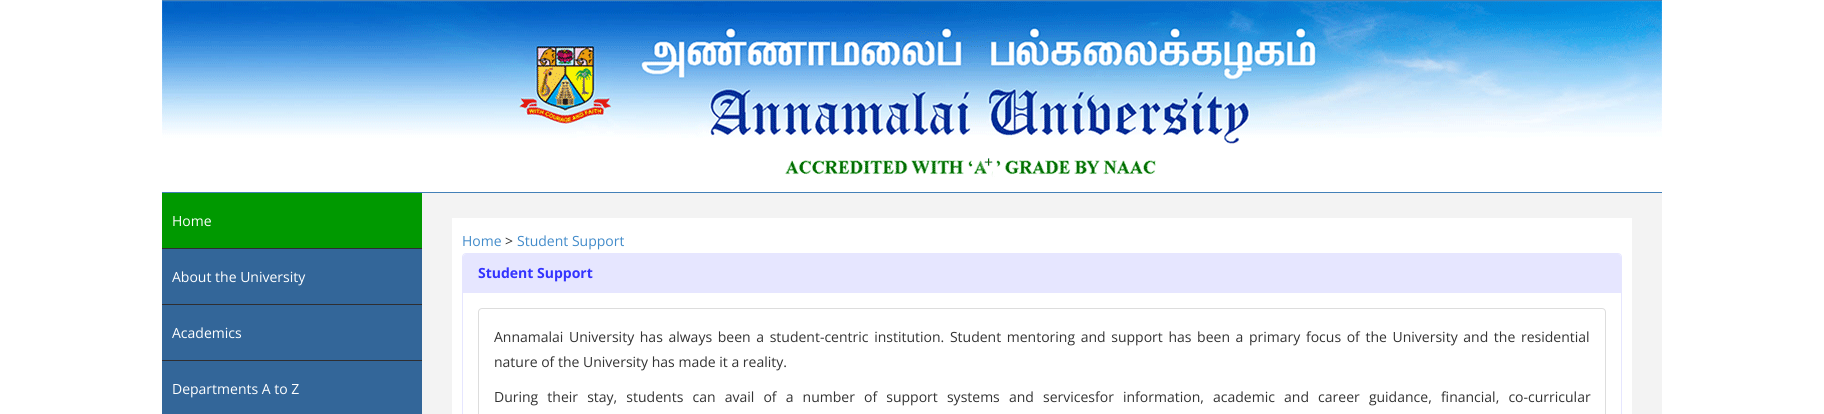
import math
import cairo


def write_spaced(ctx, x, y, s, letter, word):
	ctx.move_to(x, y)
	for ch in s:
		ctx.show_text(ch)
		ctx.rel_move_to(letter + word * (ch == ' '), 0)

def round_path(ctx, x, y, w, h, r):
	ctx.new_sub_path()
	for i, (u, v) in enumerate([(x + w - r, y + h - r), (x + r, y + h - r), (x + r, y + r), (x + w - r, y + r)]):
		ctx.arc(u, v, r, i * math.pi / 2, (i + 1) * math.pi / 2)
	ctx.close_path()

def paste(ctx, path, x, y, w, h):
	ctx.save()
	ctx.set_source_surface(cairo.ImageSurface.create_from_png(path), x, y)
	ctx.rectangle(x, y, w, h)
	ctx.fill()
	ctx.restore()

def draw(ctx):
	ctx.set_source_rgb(1, 1, 1)
	ctx.paint()
	ctx.set_source_rgb(0.263, 0.502, 0.722)
	ctx.rectangle(162, 0, 1500, 193)
	ctx.fill()
	ctx.set_source_rgb(1, 1, 1)
	ctx.rectangle(162, 177, 1500, 15)
	ctx.fill()
	paste(ctx, 'media/1.png', 162, 1, 1500, 176)
	ctx.set_source_rgb(0.2, 0.4, 0.6)
	ctx.rectangle(162, 249, 260, 165)
	ctx.fill()
	ctx.set_source_rgb(0, 0.6, 0)
	ctx.rectangle(162, 193, 260, 55)
	ctx.fill()
	ctx.set_source_rgb(0.184, 0.18, 0.192)
	ctx.rectangle(162, 248, 260, 1)
	ctx.fill()
	ctx.select_font_face('Open Sans')
	ctx.set_font_size(14)
	ctx.set_source_rgb(1, 1, 1)
	ctx.move_to(172, 226)
	ctx.show_text('Home')
	ctx.set_source_rgb(0.184, 0.18, 0.192)
	ctx.rectangle(162, 304, 260, 1)
	ctx.fill()
	ctx.set_source_rgb(1, 1, 1)
	ctx.move_to(172, 282)
	ctx.show_text('About the University')
	ctx.set_source_rgb(0.184, 0.18, 0.192)
	ctx.rectangle(162, 360, 260, 1)
	ctx.fill()
	ctx.set_source_rgb(1, 1, 1)
	ctx.move_to(172, 338)
	ctx.show_text('Academics')
	ctx.move_to(172, 394)
	ctx.show_text('Departments A to Z')
	ctx.set_source_rgb(0.953, 0.953, 0.953)
	ctx.rectangle(422, 193, 1240, 221)
	ctx.fill()
	ctx.set_source_rgb(1, 1, 1)
	ctx.rectangle(452, 218, 1180, 196)
	ctx.fill()
	ctx.set_source_rgb(0.259, 0.545, 0.792)
	ctx.move_to(462, 246)
	ctx.show_text('Home')
	ctx.set_source_rgb(0.2, 0.2, 0.2)
	ctx.move_to(505, 246)
	ctx.show_text('>')
	ctx.set_source_rgb(0.259, 0.545, 0.792)
	ctx.move_to(517, 246)
	ctx.show_text('Student Support')
	round_path(ctx, 462.5, 253.5, 1159, 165, 3.5)
	ctx.set_source_rgb(0.902, 0.902, 1)
	ctx.set_line_width(1)
	ctx.stroke()
	ctx.new_path()
	ctx.move_to(466, 254)
	ctx.line_to(1618, 254)
	ctx.curve_to(1619.5, 254, 1621, 255.5, 1621, 257)
	ctx.line_to(1621, 293)
	ctx.line_to(463, 293)
	ctx.line_to(463, 257)
	ctx.curve_to(463, 255.5, 464.5, 254, 466, 254)
	ctx.close_path()
	ctx.fill()
	ctx.select_font_face('Open Sans', cairo.FONT_SLANT_NORMAL, cairo.FONT_WEIGHT_BOLD)
	ctx.set_source_rgb(0.2, 0.2, 1)
	ctx.move_to(478, 278)
	ctx.show_text('Student Support')
	round_path(ctx, 478.5, 308.5, 1127, 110, 3.5)
	ctx.set_source_rgb(0.867, 0.867, 0.867)
	ctx.stroke()
	ctx.select_font_face('Open Sans')
	ctx.set_source_rgb(0.2, 0.2, 0.2)
	write_spaced(ctx, 494, 342, 'Annamalai University has always been a student-centric institution. Student mentoring and support has been a primary focus of the University and the residential', 0, 2)
	ctx.move_to(494, 367)
	ctx.show_text('nature of the University has made it a reality.')
	write_spaced(ctx, 494, 402, 'During their stay, students can avail of a number of support systems and servicesfor information, academic and career guidance, financial, co-curricular', 0, 5.5)


surface = cairo.ImageSurface(cairo.FORMAT_RGB24, 1824, 414)
ctx = cairo.Context(surface)
options = cairo.FontOptions()
options.set_hint_metrics(cairo.HINT_METRICS_OFF)
options.set_hint_style(cairo.HINT_STYLE_NONE)
ctx.set_font_options(options)
ctx.set_miter_limit(4)
draw(ctx)
surface.write_to_png('image.png')
